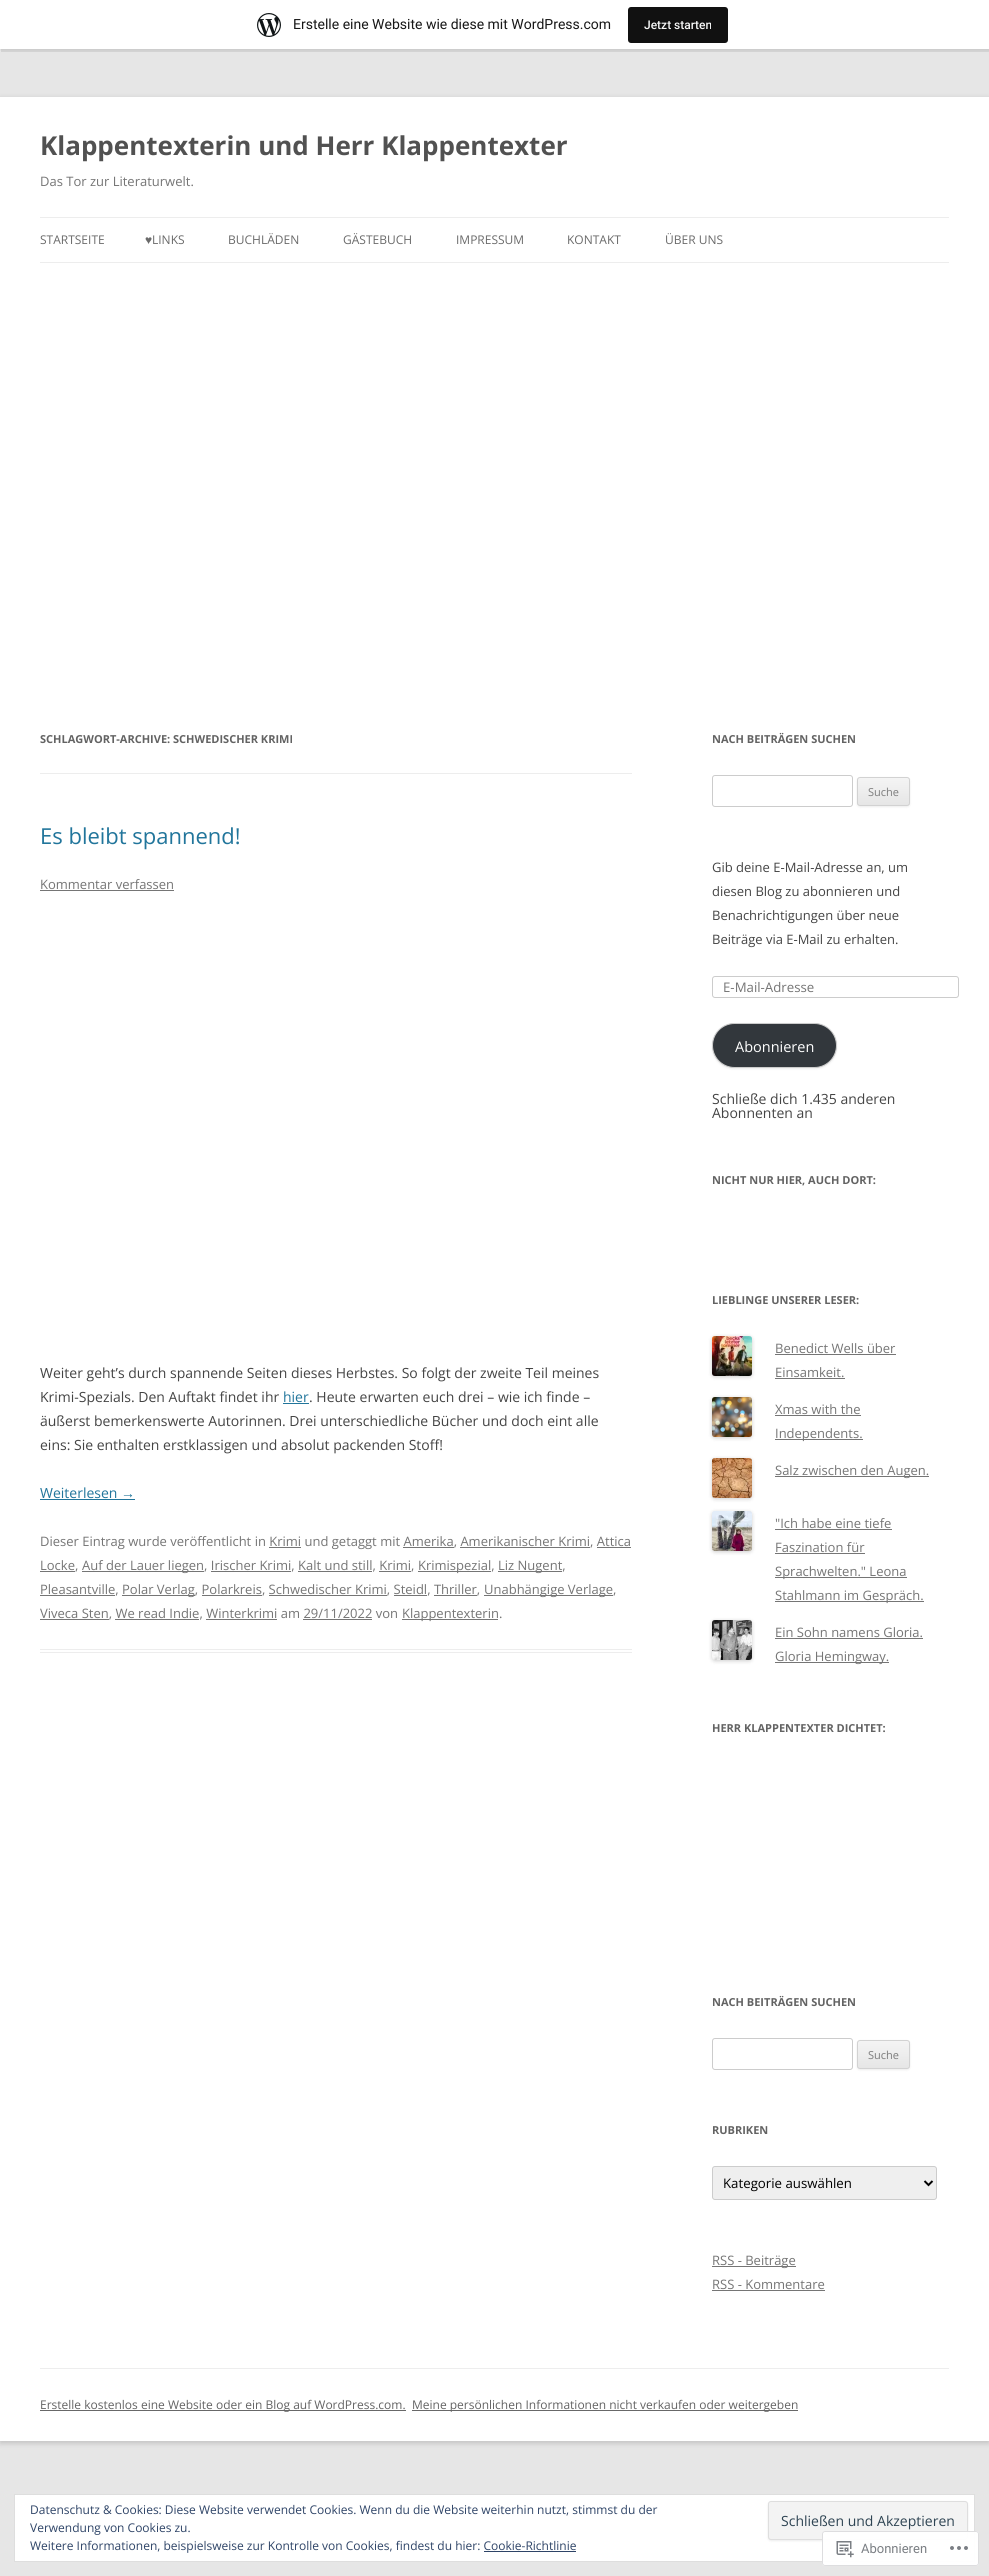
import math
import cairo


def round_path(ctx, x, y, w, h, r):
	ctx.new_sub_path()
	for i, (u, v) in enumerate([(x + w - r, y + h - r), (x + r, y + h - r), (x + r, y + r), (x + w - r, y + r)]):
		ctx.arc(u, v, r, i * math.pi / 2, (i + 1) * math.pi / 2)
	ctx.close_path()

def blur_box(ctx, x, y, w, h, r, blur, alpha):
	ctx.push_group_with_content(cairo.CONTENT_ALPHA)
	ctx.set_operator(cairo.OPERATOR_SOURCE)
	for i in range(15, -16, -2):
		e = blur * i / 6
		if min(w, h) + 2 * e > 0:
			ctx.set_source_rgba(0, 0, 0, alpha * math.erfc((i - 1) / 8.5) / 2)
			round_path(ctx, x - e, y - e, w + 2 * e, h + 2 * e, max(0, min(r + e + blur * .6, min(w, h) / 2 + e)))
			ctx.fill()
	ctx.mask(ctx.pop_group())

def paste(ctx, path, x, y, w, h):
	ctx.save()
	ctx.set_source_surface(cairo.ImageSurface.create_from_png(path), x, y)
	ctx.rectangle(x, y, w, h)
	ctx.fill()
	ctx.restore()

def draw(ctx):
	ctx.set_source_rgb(0.902, 0.902, 0.902)
	ctx.paint()
	ctx.set_source_rgb(0, 0, 0)
	blur_box(ctx, 0, 1, 989, 49, 0, 1, 0.05)
	ctx.set_source_rgba(0, 0, 0, 0.08)
	ctx.new_path()
	ctx.move_to(1, 49)
	ctx.line_to(1, 52)
	ctx.line_to(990, 52)
	ctx.line_to(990, 3)
	ctx.line_to(989, 3)
	ctx.line_to(989, 49)
	ctx.close_path()
	ctx.fill()
	ctx.set_source_rgb(1, 1, 1)
	ctx.rectangle(0, 0, 989, 49)
	ctx.fill()
	paste(ctx, 'media/1.png', 257, 13, 24, 24)
	ctx.select_font_face('Roboto')
	ctx.set_font_size(14)
	ctx.set_source_rgb(0.09, 0.09, 0.09)
	ctx.move_to(293, 29)
	ctx.show_text('Erstelle eine Website wie diese mit WordPress.com')
	ctx.set_source_rgb(0.067, 0.067, 0.067)
	round_path(ctx, 628, 7, 100, 36, 3)
	ctx.fill()
	ctx.select_font_face('Roboto Medium')
	ctx.set_font_size(12)
	ctx.set_source_rgb(0.965, 0.969, 0.969)
	ctx.move_to(644, 29)
	ctx.show_text('Jetzt starten')
	ctx.set_source_rgb(0.392, 0.392, 0.392)
	blur_box(ctx, 0, 99, 989, 2344, 0, 3, 0.3)
	ctx.set_source_rgb(1, 1, 1)
	ctx.rectangle(0, 97, 989, 2344)
	ctx.fill()
	ctx.select_font_face('Open Sans', cairo.FONT_SLANT_NORMAL, cairo.FONT_WEIGHT_BOLD)
	ctx.set_font_size(26)
	ctx.set_source_rgb(0.318, 0.318, 0.318)
	ctx.move_to(40, 155)
	ctx.show_text('Klappentexterin und Herr Klappentexter')
	ctx.select_font_face('Open Sans')
	ctx.set_font_size(13)
	ctx.set_source_rgb(0.459, 0.459, 0.459)
	ctx.move_to(40, 186)
	ctx.show_text('Das Tor zur Literaturwelt.')
	ctx.set_source_rgb(0.929, 0.929, 0.929)
	ctx.rectangle(40, 217, 909, 1)
	ctx.fill()
	ctx.rectangle(40, 262, 909, 1)
	ctx.fill()
	ctx.set_font_size(12)
	ctx.set_source_rgb(0.416, 0.416, 0.416)
	ctx.move_to(40, 244)
	ctx.show_text('STARTSEITE')
	ctx.select_font_face('Liberation Sans')
	ctx.move_to(145, 244)
	ctx.show_text('♥')
	ctx.select_font_face('Open Sans')
	for x, y, s in [
		(152, 244, 'LINKS'),
		(228, 244, 'BUCHLÄDEN'),
		(343, 244, 'GÄSTEBUCH'),
		(456, 244, 'IMPRESSUM'),
		(567, 244, 'KONTAKT'),
		(665, 244, 'ÜBER UNS'),
	]:
		ctx.move_to(x, y)
		ctx.show_text(s)
	ctx.set_source_rgb(0.929, 0.929, 0.929)
	ctx.rectangle(40, 773, 592, 1)
	ctx.fill()
	ctx.select_font_face('Open Sans', cairo.FONT_SLANT_NORMAL, cairo.FONT_WEIGHT_BOLD)
	ctx.set_font_size(11)
	ctx.set_source_rgb(0.388, 0.388, 0.388)
	ctx.move_to(40, 743)
	ctx.show_text('SCHLAGWORT-ARCHIVE: SCHWEDISCHER KRIMI')
	ctx.set_source_rgb(0.929, 0.929, 0.929)
	ctx.rectangle(40, 1649, 592, 1)
	ctx.fill()
	ctx.rectangle(40, 1652, 592, 1)
	ctx.fill()
	ctx.select_font_face('Open Sans')
	ctx.set_font_size(22)
	ctx.set_source_rgb(0.129, 0.459, 0.608)
	ctx.move_to(40, 844)
	ctx.show_text('Es bleibt spannend!')
	ctx.set_font_size(13)
	ctx.set_source_rgb(0.459, 0.459, 0.459)
	ctx.move_to(40, 889)
	ctx.show_text('Kommentar verfassen')
	ctx.rectangle(40, 890, 134, 1)
	ctx.fill()
	ctx.set_font_size(14)
	ctx.set_source_rgb(0.267, 0.267, 0.267)
	ctx.move_to(40, 1378)
	ctx.show_text('Weiter geht’s durch spannende Seiten dieses Herbstes. So folgt der zweite Teil meines')
	ctx.move_to(40, 1402)
	ctx.show_text('Krimi-Spezials. Den Auftakt findet ihr')
	ctx.set_source_rgb(0.129, 0.459, 0.608)
	ctx.move_to(283, 1402)
	ctx.show_text('hier')
	ctx.rectangle(283, 1403, 26, 1)
	ctx.fill()
	ctx.set_source_rgb(0.267, 0.267, 0.267)
	for x, y, s in [
		(309, 1402, '. Heute erwarten euch drei – wie ich finde –'),
		(40, 1426, 'äußerst bemerkenswerte Autorinnen. Drei unterschiedliche Bücher und doch eint alle'),
		(40, 1450, 'eins: Sie enthalten erstklassigen und absolut packenden Stoff!'),
	]:
		ctx.move_to(x, y)
		ctx.show_text(s)
	ctx.set_source_rgb(0.129, 0.459, 0.608)
	ctx.move_to(40, 1498)
	ctx.show_text('Weiterlesen')
	ctx.select_font_face('Liberation Sans')
	ctx.move_to(121, 1498)
	ctx.show_text('→')
	ctx.rectangle(40, 1499, 95, 1)
	ctx.fill()
	ctx.select_font_face('Open Sans')
	ctx.set_font_size(13)
	ctx.set_source_rgb(0.459, 0.459, 0.459)
	ctx.move_to(40, 1546)
	ctx.show_text('Dieser Eintrag wurde veröffentlicht in Krimi und getaggt mit Amerika, Amerikanischer Krimi, Attica')
	ctx.rectangle(269, 1547, 32, 1)
	ctx.rectangle(403, 1547, 51, 1)
	ctx.rectangle(460, 1547, 130, 1)
	ctx.rectangle(40, 1571, 35, 1)
	ctx.fill()
	ctx.move_to(40, 1570)
	ctx.show_text('Locke,')
	ctx.rectangle(597, 1547, 34, 1)
	ctx.fill()
	ctx.rectangle(82, 1571, 122, 1)
	ctx.fill()
	ctx.move_to(82, 1570)
	ctx.show_text('Auf der Lauer liegen, Irischer Krimi, Kalt und still, Krimi,')
	ctx.rectangle(418, 1571, 73, 1)
	ctx.fill()
	ctx.move_to(418, 1570)
	ctx.show_text('Krimispezial,')
	ctx.rectangle(498, 1571, 64, 1)
	ctx.fill()
	ctx.move_to(498, 1570)
	ctx.show_text('Liz Nugent,')
	ctx.rectangle(211, 1571, 80, 1)
	ctx.rectangle(298, 1571, 74, 1)
	ctx.rectangle(379, 1571, 32, 1)
	ctx.rectangle(40, 1595, 75, 1)
	ctx.fill()
	ctx.move_to(40, 1594)
	ctx.show_text('Pleasantville,')
	ctx.rectangle(122, 1595, 73, 1)
	ctx.fill()
	ctx.move_to(122, 1594)
	ctx.show_text('Polar Verlag, Polarkreis, Schwedischer Krimi, Steidl, Thriller,')
	ctx.rectangle(484, 1595, 129, 1)
	ctx.fill()
	ctx.move_to(484, 1594)
	ctx.show_text('Unabhängige Verlage,')
	ctx.rectangle(202, 1595, 60, 1)
	ctx.rectangle(269, 1595, 118, 1)
	ctx.rectangle(394, 1595, 33, 1)
	ctx.rectangle(434, 1595, 43, 1)
	ctx.rectangle(40, 1619, 69, 1)
	ctx.fill()
	ctx.move_to(40, 1618)
	ctx.show_text('Viveca Sten, We read Indie, Winterkrimi am 29/11/2022 von')
	ctx.rectangle(402, 1619, 96, 1)
	ctx.fill()
	ctx.move_to(402, 1618)
	ctx.show_text('Klappentexterin.')
	ctx.rectangle(115, 1619, 84, 1)
	ctx.rectangle(206, 1619, 71, 1)
	ctx.rectangle(303, 1619, 69, 1)
	ctx.fill()
	ctx.select_font_face('Open Sans', cairo.FONT_SLANT_NORMAL, cairo.FONT_WEIGHT_BOLD)
	ctx.set_font_size(11)
	ctx.set_source_rgb(0.388, 0.388, 0.388)
	ctx.move_to(712, 743)
	ctx.show_text('NACH BEITRÄGEN SUCHEN')
	round_path(ctx, 712.5, 775.5, 140, 31, 2.5)
	ctx.set_source_rgb(0.8, 0.8, 0.8)
	ctx.set_line_width(1)
	ctx.stroke()
	ctx.set_source_rgb(0.251, 0.251, 0.251)
	blur_box(ctx, 857, 778, 53, 29, 3, 1, 0.1)
	ctx.save()
	round_path(ctx, 857, 777, 53, 29, 3)
	ctx.clip()
	gradient = cairo.LinearGradient(884, 778, 884, 805)
	gradient.add_color_stop_rgba(0, 0.957, 0.957, 0.957, 1)
	gradient.add_color_stop_rgba(1, 0.902, 0.902, 0.902, 1)
	ctx.set_source(gradient)
	ctx.rectangle(857, 778, 53, 27)
	ctx.fill()
	ctx.restore()
	round_path(ctx, 857.5, 777.5, 52, 28, 2.5)
	ctx.set_source_rgb(0.824, 0.824, 0.824)
	ctx.stroke()
	ctx.select_font_face('Open Sans')
	ctx.set_source_rgb(0.486, 0.486, 0.486)
	ctx.move_to(868, 796)
	ctx.show_text('Suche')
	ctx.set_font_size(13)
	ctx.set_source_rgb(0.267, 0.267, 0.267)
	for x, y, s in [
		(712, 872, 'Gib deine E-Mail-Adresse an, um'),
		(712, 896, 'diesen Blog zu abonnieren und'),
		(712, 920, 'Benachrichtigungen über neue'),
		(712, 944, 'Beiträge via E-Mail zu erhalten.'),
	]:
		ctx.move_to(x, y)
		ctx.show_text(s)
	round_path(ctx, 712.5, 976.5, 246, 21, 2.5)
	ctx.set_source_rgb(0.8, 0.8, 0.8)
	ctx.stroke()
	ctx.set_font_size(13.25)
	ctx.set_source_rgb(0.459, 0.459, 0.459)
	ctx.move_to(723, 992)
	ctx.show_text('E-Mail-Adresse')
	ctx.set_source_rgb(0.251, 0.251, 0.251)
	blur_box(ctx, 712, 1024, 125, 45, 22.5, 1, 0.1)
	ctx.set_source_rgb(0.196, 0.216, 0.235)
	round_path(ctx, 712.5, 1023.5, 124, 44, 22)
	ctx.fill_preserve()
	ctx.set_source_rgb(0.8, 0.8, 0.8)
	ctx.stroke()
	ctx.set_font_size(14.5)
	ctx.set_source_rgb(1, 1, 1)
	ctx.move_to(735, 1052)
	ctx.show_text('Abonnieren')
	ctx.set_font_size(14)
	ctx.set_source_rgb(0.267, 0.267, 0.267)
	ctx.move_to(712, 1104)
	ctx.show_text('Schließe dich 1.435 anderen')
	ctx.move_to(712, 1118)
	ctx.show_text('Abonnenten an')
	ctx.select_font_face('Open Sans', cairo.FONT_SLANT_NORMAL, cairo.FONT_WEIGHT_BOLD)
	ctx.set_font_size(11)
	ctx.set_source_rgb(0.388, 0.388, 0.388)
	ctx.move_to(712, 1184)
	ctx.show_text('NICHT NUR HIER, AUCH DORT:')
	ctx.move_to(712, 1304)
	ctx.show_text('LIEBLINGE UNSERER LESER:')
	ctx.set_source_rgb(0, 0, 0)
	blur_box(ctx, 712, 1337, 40, 40, 3, 2, 0.2)
	paste(ctx, 'media/2.png', 712, 1336, 40, 40)
	ctx.select_font_face('Open Sans')
	ctx.set_font_size(13)
	ctx.set_source_rgb(0.459, 0.459, 0.459)
	ctx.move_to(775, 1353)
	ctx.show_text('Benedict Wells über')
	ctx.rectangle(775, 1354, 121, 1)
	ctx.fill()
	ctx.move_to(775, 1377)
	ctx.show_text('Einsamkeit.')
	ctx.rectangle(775, 1378, 70, 1)
	ctx.fill()
	ctx.set_source_rgb(0, 0, 0)
	blur_box(ctx, 712, 1398, 40, 40, 3, 2, 0.2)
	paste(ctx, 'media/3.png', 712, 1397, 40, 40)
	ctx.set_source_rgb(0.459, 0.459, 0.459)
	ctx.move_to(775, 1414)
	ctx.show_text('Xmas with the')
	ctx.rectangle(775, 1415, 86, 1)
	ctx.fill()
	ctx.rectangle(775, 1439, 88, 1)
	ctx.fill()
	ctx.move_to(775, 1438)
	ctx.show_text('Independents.')
	ctx.set_source_rgb(0, 0, 0)
	blur_box(ctx, 712, 1459, 40, 40, 3, 2, 0.2)
	paste(ctx, 'media/4.png', 712, 1458, 40, 40)
	ctx.set_source_rgb(0.459, 0.459, 0.459)
	ctx.rectangle(775, 1476, 154, 1)
	ctx.fill()
	ctx.move_to(775, 1475)
	ctx.show_text('Salz zwischen den Augen.')
	ctx.set_source_rgb(0, 0, 0)
	blur_box(ctx, 712, 1512, 40, 40, 3, 2, 0.2)
	paste(ctx, 'media/5.png', 712, 1511, 40, 40)
	ctx.set_source_rgb(0.459, 0.459, 0.459)
	ctx.move_to(775, 1528)
	ctx.show_text('"Ich habe eine tiefe')
	ctx.rectangle(775, 1529, 117, 1)
	ctx.fill()
	ctx.move_to(775, 1552)
	ctx.show_text('Faszination für')
	ctx.rectangle(775, 1553, 90, 1)
	ctx.fill()
	ctx.rectangle(775, 1577, 132, 1)
	ctx.fill()
	ctx.move_to(775, 1576)
	ctx.show_text('Sprachwelten." Leona')
	ctx.rectangle(775, 1601, 149, 1)
	ctx.fill()
	ctx.move_to(775, 1600)
	ctx.show_text('Stahlmann im Gespräch.')
	ctx.set_source_rgb(0, 0, 0)
	blur_box(ctx, 712, 1621, 40, 40, 3, 2, 0.2)
	paste(ctx, 'media/6.png', 712, 1620, 40, 40)
	ctx.set_source_rgb(0.459, 0.459, 0.459)
	ctx.move_to(775, 1637)
	ctx.show_text('Ein Sohn namens Gloria.')
	ctx.rectangle(775, 1638, 148, 1)
	ctx.fill()
	ctx.rectangle(775, 1662, 114, 1)
	ctx.fill()
	ctx.move_to(775, 1661)
	ctx.show_text('Gloria Hemingway.')
	ctx.select_font_face('Open Sans', cairo.FONT_SLANT_NORMAL, cairo.FONT_WEIGHT_BOLD)
	ctx.set_font_size(11)
	ctx.set_source_rgb(0.388, 0.388, 0.388)
	ctx.move_to(712, 1732)
	ctx.show_text('HERR KLAPPENTEXTER DICHTET:')
	ctx.move_to(712, 2006)
	ctx.show_text('NACH BEITRÄGEN SUCHEN')
	round_path(ctx, 712.5, 2038.5, 140, 31, 2.5)
	ctx.set_source_rgb(0.8, 0.8, 0.8)
	ctx.stroke()
	ctx.set_source_rgb(0.251, 0.251, 0.251)
	blur_box(ctx, 857, 2041, 53, 29, 3, 1, 0.1)
	ctx.save()
	round_path(ctx, 857, 2040, 53, 29, 3)
	ctx.clip()
	gradient = cairo.LinearGradient(884, 2041, 884, 2068)
	gradient.add_color_stop_rgba(0, 0.957, 0.957, 0.957, 1)
	gradient.add_color_stop_rgba(1, 0.902, 0.902, 0.902, 1)
	ctx.set_source(gradient)
	ctx.rectangle(857, 2041, 53, 27)
	ctx.fill()
	ctx.restore()
	round_path(ctx, 857.5, 2040.5, 52, 28, 2.5)
	ctx.set_source_rgb(0.824, 0.824, 0.824)
	ctx.stroke()
	ctx.select_font_face('Open Sans')
	ctx.set_source_rgb(0.486, 0.486, 0.486)
	ctx.move_to(868, 2059)
	ctx.show_text('Suche')
	ctx.select_font_face('Open Sans', cairo.FONT_SLANT_NORMAL, cairo.FONT_WEIGHT_BOLD)
	ctx.set_source_rgb(0.388, 0.388, 0.388)
	ctx.move_to(712, 2134)
	ctx.show_text('RUBRIKEN')
	ctx.set_source_rgb(0.937, 0.937, 0.937)
	round_path(ctx, 712.5, 2166.5, 224, 33, 2.5)
	ctx.fill_preserve()
	ctx.set_source_rgb(0.8, 0.8, 0.8)
	ctx.stroke()
	ctx.new_path()
	ctx.move_to(924.5, 2181)
	ctx.line_to(928.5, 2185)
	ctx.line_to(932.5, 2181)
	ctx.set_source_rgb(0, 0, 0)
	ctx.set_line_width(2)
	ctx.stroke()
	ctx.select_font_face('Open Sans')
	ctx.set_font_size(13.25)
	ctx.move_to(723, 2188)
	ctx.show_text('Kategorie auswählen')
	ctx.set_source_rgb(0.459, 0.459, 0.459)
	ctx.rectangle(712, 2266, 84, 1)
	ctx.fill()
	ctx.set_font_size(13)
	ctx.move_to(712, 2265)
	ctx.show_text('RSS - Beiträge')
	ctx.move_to(712, 2289)
	ctx.show_text('RSS - Kommentare')
	ctx.rectangle(712, 2290, 113, 1)
	ctx.fill()
	ctx.set_source_rgb(0.929, 0.929, 0.929)
	ctx.rectangle(40, 2368, 909, 1)
	ctx.fill()
	ctx.set_source_rgb(0.408, 0.408, 0.408)
	ctx.rectangle(40, 2410, 366, 1)
	ctx.fill()
	ctx.set_font_size(12)
	ctx.set_source_rgb(0.388, 0.388, 0.388)
	ctx.move_to(40, 2409)
	ctx.show_text('Erstelle kostenlos eine Website oder ein Blog auf WordPress.com.')
	ctx.set_source_rgb(0.408, 0.408, 0.408)
	ctx.rectangle(412, 2410, 386, 1)
	ctx.fill()
	ctx.set_source_rgb(0.388, 0.388, 0.388)
	ctx.move_to(412, 2409)
	ctx.show_text('Meine persönlichen Informationen nicht verkaufen oder weitergeben')
	ctx.set_source_rgb(1, 1, 1)
	ctx.rectangle(14.5, 2494.5, 960, 67)
	ctx.fill_preserve()
	ctx.set_source_rgb(0.871, 0.871, 0.871)
	ctx.set_line_width(1)
	ctx.stroke()
	ctx.set_source_rgb(0.18, 0.267, 0.404)
	ctx.move_to(30, 2514)
	ctx.show_text('Datenschutz & Cookies: Diese Website verwendet Cookies. Wenn du die Website weiterhin nutzt, stimmst du der')
	ctx.move_to(30, 2532)
	ctx.show_text('Verwendung von Cookies zu.')
	ctx.set_source_rgb(0.251, 0.251, 0.251)
	blur_box(ctx, 768, 2502, 200, 39, 3, 1, 0.1)
	ctx.set_source_rgb(0.953, 0.953, 0.953)
	round_path(ctx, 768.5, 2501.5, 199, 38, 2.5)
	ctx.fill_preserve()
	ctx.set_source_rgb(0.871, 0.871, 0.871)
	ctx.stroke()
	ctx.set_font_size(14)
	ctx.set_source_rgb(0.18, 0.267, 0.325)
	ctx.move_to(781, 2526)
	ctx.show_text('Schließen und Akzeptieren')
	ctx.set_font_size(12)
	ctx.set_source_rgb(0.18, 0.267, 0.404)
	ctx.move_to(30, 2550)
	ctx.show_text('Weitere Informationen, beispielsweise zur Kontrolle von Cookies, findest du hier: Cookie-Richtlinie')
	ctx.rectangle(484, 2551, 92, 1)
	ctx.fill()
	ctx.set_source_rgba(1, 1, 1, 0.98)
	round_path(ctx, 822, 2531, 157, 35, 3)
	ctx.fill()
	round_path(ctx, 822.5, 2531.5, 156, 34, 2.5)
	ctx.set_source_rgba(0.863, 0.863, 0.871, 0.98)
	ctx.stroke()
	paste(ctx, 'media/7.png', 836, 2541, 18, 17)
	ctx.select_font_face('Roboto')
	ctx.set_font_size(13)
	ctx.set_source_rgb(0.482, 0.498, 0.518)
	ctx.move_to(861, 2553)
	ctx.show_text('Abonnieren')
	paste(ctx, 'media/8.png', 950, 2546, 18, 4)


surface = cairo.ImageSurface(cairo.FORMAT_RGB24, 989, 2576)
ctx = cairo.Context(surface)
options = cairo.FontOptions()
options.set_hint_metrics(cairo.HINT_METRICS_OFF)
options.set_hint_style(cairo.HINT_STYLE_NONE)
ctx.set_font_options(options)
ctx.set_miter_limit(4)
draw(ctx)
surface.write_to_png('image.png')
